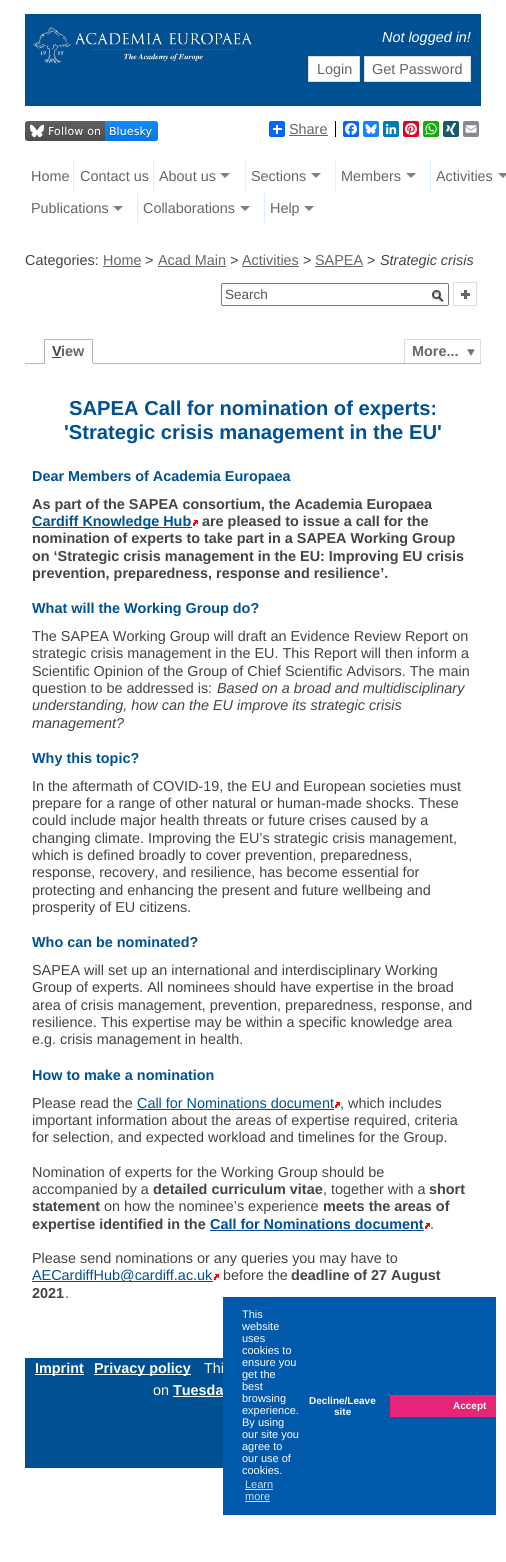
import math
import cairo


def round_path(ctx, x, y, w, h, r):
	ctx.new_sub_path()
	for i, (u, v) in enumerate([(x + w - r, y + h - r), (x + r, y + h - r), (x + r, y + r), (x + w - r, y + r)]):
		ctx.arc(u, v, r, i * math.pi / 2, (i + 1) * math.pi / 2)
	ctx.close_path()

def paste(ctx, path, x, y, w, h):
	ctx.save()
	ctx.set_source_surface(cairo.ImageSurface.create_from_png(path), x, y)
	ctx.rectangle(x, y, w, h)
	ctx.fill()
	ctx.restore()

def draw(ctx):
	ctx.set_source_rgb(1, 1, 1)
	ctx.paint()
	ctx.set_source_rgb(0, 0.318, 0.576)
	ctx.rectangle(25, 14, 456, 92)
	ctx.fill()
	paste(ctx, 'media/1.png', 31, 26, 222, 39)
	ctx.select_font_face('Liberation Sans', cairo.FONT_SLANT_ITALIC)
	ctx.set_font_size(14.4)
	ctx.set_source_rgb(1, 1, 1)
	ctx.move_to(382, 42)
	ctx.show_text('Not logged in!')
	ctx.rectangle(308.5, 56.5, 51, 25)
	ctx.fill_preserve()
	ctx.set_source_rgb(0.867, 0.867, 0.867)
	ctx.set_line_width(1)
	ctx.stroke()
	ctx.select_font_face('Liberation Sans')
	ctx.set_source_rgb(0.4, 0.4, 0.4)
	ctx.move_to(317, 74)
	ctx.show_text('Login')
	ctx.set_source_rgb(1, 1, 1)
	ctx.rectangle(364.5, 56.5, 106, 25)
	ctx.fill_preserve()
	ctx.set_source_rgb(0.867, 0.867, 0.867)
	ctx.stroke()
	ctx.set_source_rgb(0.4, 0.4, 0.4)
	ctx.move_to(372, 74)
	ctx.show_text('Get Password')
	paste(ctx, 'media/2.png', 25, 121, 133, 20)
	ctx.set_source_rgb(0.004, 0.4, 1)
	round_path(ctx, 269, 121, 16, 16, 2)
	ctx.fill()
	ctx.set_source_rgb(1, 1, 1)
	ctx.rectangle(276, 125, 2, 9)
	ctx.fill()
	ctx.rectangle(273, 128, 9, 2)
	ctx.fill()
	ctx.set_source_rgb(0.4, 0.4, 0.4)
	ctx.move_to(289, 134)
	ctx.show_text('Share')
	ctx.rectangle(289, 135, 39, 1)
	ctx.fill()
	ctx.set_source_rgb(0, 0, 0)
	ctx.rectangle(335, 121, 1, 16)
	ctx.fill()
	ctx.set_source_rgb(0.031, 0.4, 1)
	round_path(ctx, 343, 121, 16, 16, 2)
	ctx.fill()
	paste(ctx, 'media/3.png', 345, 123, 12, 12)
	ctx.set_source_rgb(0.071, 0.522, 0.996)
	round_path(ctx, 363, 121, 16, 16, 2)
	ctx.fill()
	paste(ctx, 'media/4.png', 365, 124, 12, 10)
	ctx.set_source_rgb(0, 0.482, 0.71)
	round_path(ctx, 383, 121, 16, 16, 2)
	ctx.fill()
	paste(ctx, 'media/5.png', 386, 124, 11, 11)
	ctx.set_source_rgb(0.902, 0, 0.137)
	round_path(ctx, 403, 121, 16, 16, 2)
	ctx.fill()
	paste(ctx, 'media/6.png', 405, 123, 12, 12)
	ctx.set_source_rgb(0.071, 0.686, 0.039)
	round_path(ctx, 423, 121, 16, 16, 2)
	ctx.fill()
	paste(ctx, 'media/7.png', 425, 123, 12, 12)
	ctx.set_source_rgb(0.086, 0.357, 0.4)
	round_path(ctx, 443, 121, 16, 16, 2)
	ctx.fill()
	paste(ctx, 'media/8.png', 445, 123, 12, 12)
	ctx.set_source_rgb(0.533, 0.537, 0.565)
	round_path(ctx, 463, 121, 16, 16, 2)
	ctx.fill()
	paste(ctx, 'media/9.png', 465, 125, 12, 8)
	ctx.set_source_rgb(0.875, 0.933, 1)
	ctx.rectangle(73, 159, 1, 33)
	ctx.fill()
	ctx.set_source_rgb(0.4, 0.4, 0.4)
	ctx.move_to(31, 181)
	ctx.show_text('Home')
	ctx.set_source_rgb(0.875, 0.933, 1)
	ctx.rectangle(153, 159, 1, 33)
	ctx.fill()
	ctx.set_source_rgb(0.4, 0.4, 0.4)
	ctx.move_to(80, 181)
	ctx.show_text('Contact us')
	ctx.set_source_rgb(0.875, 0.933, 1)
	ctx.rectangle(245, 159, 1, 33)
	ctx.fill()
	ctx.set_source_rgb(0.4, 0.4, 0.4)
	ctx.move_to(159, 181)
	ctx.show_text('About us')
	ctx.set_source_rgb(0.502, 0.502, 0.502)
	ctx.new_path()
	ctx.move_to(220, 173)
	ctx.line_to(230, 173)
	ctx.line_to(225, 178)
	ctx.close_path()
	ctx.fill()
	ctx.set_source_rgb(0.875, 0.933, 1)
	ctx.rectangle(335, 159, 1, 33)
	ctx.fill()
	ctx.set_source_rgb(0.4, 0.4, 0.4)
	ctx.move_to(251, 181)
	ctx.show_text('Sections')
	ctx.set_source_rgb(0.502, 0.502, 0.502)
	ctx.new_path()
	ctx.move_to(311, 173)
	ctx.line_to(321, 173)
	ctx.line_to(316, 178)
	ctx.close_path()
	ctx.fill()
	ctx.set_source_rgb(0.875, 0.933, 1)
	ctx.rectangle(430, 159, 1, 33)
	ctx.fill()
	ctx.set_source_rgb(0.4, 0.4, 0.4)
	ctx.move_to(341, 181)
	ctx.show_text('Members')
	ctx.set_source_rgb(0.502, 0.502, 0.502)
	ctx.new_path()
	ctx.move_to(406, 173)
	ctx.line_to(416, 173)
	ctx.line_to(411, 178)
	ctx.close_path()
	ctx.fill()
	ctx.set_source_rgb(0.4, 0.4, 0.4)
	ctx.move_to(436, 181)
	ctx.show_text('Activities')
	ctx.set_source_rgb(0.502, 0.502, 0.502)
	ctx.new_path()
	ctx.move_to(498, 173)
	ctx.line_to(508, 173)
	ctx.line_to(503, 178)
	ctx.close_path()
	ctx.fill()
	ctx.set_source_rgb(0.875, 0.933, 1)
	ctx.rectangle(137, 192, 1, 33)
	ctx.fill()
	ctx.set_source_rgb(0.4, 0.4, 0.4)
	ctx.move_to(31, 213)
	ctx.show_text('Publications')
	ctx.set_source_rgb(0.502, 0.502, 0.502)
	ctx.new_path()
	ctx.move_to(113, 206)
	ctx.line_to(123, 206)
	ctx.line_to(118, 211)
	ctx.close_path()
	ctx.fill()
	ctx.set_source_rgb(0.875, 0.933, 1)
	ctx.rectangle(264, 192, 1, 33)
	ctx.fill()
	ctx.set_source_rgb(0.4, 0.4, 0.4)
	ctx.move_to(143, 213)
	ctx.show_text('Collaborations')
	ctx.set_source_rgb(0.502, 0.502, 0.502)
	ctx.new_path()
	ctx.move_to(240, 206)
	ctx.line_to(250, 206)
	ctx.line_to(245, 211)
	ctx.close_path()
	ctx.fill()
	ctx.set_source_rgb(0.4, 0.4, 0.4)
	ctx.move_to(270, 213)
	ctx.show_text('Help')
	ctx.set_source_rgb(0.502, 0.502, 0.502)
	ctx.new_path()
	ctx.move_to(304, 206)
	ctx.line_to(314, 206)
	ctx.line_to(309, 211)
	ctx.close_path()
	ctx.fill()
	ctx.set_source_rgb(0.267, 0.267, 0.267)
	ctx.move_to(25, 265)
	ctx.show_text('Categories:')
	ctx.set_source_rgb(0.4, 0.4, 0.4)
	ctx.move_to(103, 265)
	ctx.show_text('Home')
	ctx.rectangle(103, 266, 38, 1)
	ctx.fill()
	ctx.set_source_rgb(0.267, 0.267, 0.267)
	ctx.move_to(145, 265)
	ctx.show_text('>')
	ctx.set_source_rgb(0.4, 0.4, 0.4)
	ctx.move_to(158, 265)
	ctx.show_text('Acad Main')
	ctx.rectangle(158, 266, 68, 1)
	ctx.fill()
	ctx.set_source_rgb(0.267, 0.267, 0.267)
	ctx.move_to(230, 265)
	ctx.show_text('>')
	ctx.set_source_rgb(0.4, 0.4, 0.4)
	ctx.move_to(242, 265)
	ctx.show_text('Activities')
	ctx.rectangle(242, 266, 57, 1)
	ctx.fill()
	ctx.set_source_rgb(0.267, 0.267, 0.267)
	ctx.move_to(303, 265)
	ctx.show_text('>')
	ctx.set_source_rgb(0.4, 0.4, 0.4)
	ctx.move_to(315, 265)
	ctx.show_text('SAPEA')
	ctx.rectangle(315, 266, 48, 1)
	ctx.fill()
	ctx.set_source_rgb(0.267, 0.267, 0.267)
	ctx.move_to(367, 265)
	ctx.show_text('>')
	ctx.select_font_face('Liberation Sans', cairo.FONT_SLANT_ITALIC)
	ctx.move_to(380, 265)
	ctx.show_text('Strategic crisis')
	round_path(ctx, 221.5, 283.5, 227, 22, 1.5)
	ctx.set_source_rgb(0.463, 0.463, 0.463)
	ctx.stroke()
	ctx.select_font_face('Liberation Sans')
	ctx.set_font_size(13.5)
	ctx.set_source_rgb(0.333, 0.333, 0.333)
	ctx.move_to(225, 299)
	ctx.show_text('Search')
	paste(ctx, 'media/10.png', 432, 290, 12, 12)
	ctx.rectangle(453.5, 282.5, 23, 23)
	ctx.set_source_rgb(0.867, 0.867, 0.867)
	ctx.stroke()
	paste(ctx, 'media/11.png', 461, 290, 9, 9)
	ctx.set_source_rgb(0.714, 0.714, 0.714)
	ctx.rectangle(44, 339, 49, 1)
	ctx.rectangle(25, 363, 456, 1)
	ctx.rectangle(92, 339, 1, 25)
	ctx.fill()
	ctx.set_source_rgb(1, 1, 1)
	ctx.rectangle(44, 363, 49, 1)
	ctx.fill()
	ctx.set_source_rgb(0.714, 0.714, 0.714)
	ctx.rectangle(44, 339, 1, 25)
	ctx.fill()
	ctx.select_font_face('Liberation Sans', cairo.FONT_SLANT_NORMAL, cairo.FONT_WEIGHT_BOLD)
	ctx.set_font_size(14.4)
	ctx.set_source_rgb(0.267, 0.267, 0.267)
	ctx.move_to(52, 356)
	ctx.show_text('V')
	ctx.rectangle(52, 357, 9, 1)
	ctx.fill()
	ctx.set_source_rgb(0.4, 0.4, 0.4)
	ctx.move_to(61, 356)
	ctx.show_text('iew')
	paste(ctx, 'media/12.png', 467, 349, 8, 7)
	ctx.set_source_rgb(0.867, 0.867, 0.867)
	ctx.rectangle(404, 339, 77, 1)
	ctx.rectangle(480, 339, 1, 24)
	ctx.rectangle(404, 339, 1, 24)
	ctx.fill()
	ctx.set_source_rgb(0.4, 0.4, 0.4)
	ctx.move_to(412, 356)
	ctx.show_text('More...')
	ctx.set_font_size(20.2)
	ctx.set_source_rgb(0, 0.318, 0.576)
	ctx.move_to(69, 415)
	ctx.show_text('SAPEA Call for nomination of experts:')
	ctx.move_to(64, 439)
	ctx.show_text('\'Strategic crisis management in the EU\'')
	ctx.set_font_size(14.4)
	ctx.move_to(32, 481)
	ctx.show_text('Dear Members of Academia Europaea')
	ctx.set_source_rgb(0.267, 0.267, 0.267)
	ctx.move_to(32, 509)
	ctx.show_text('As part of the SAPEA consortium, the Academia Europaea')
	ctx.set_source_rgb(0, 0.318, 0.576)
	ctx.rectangle(32, 527, 160, 1)
	ctx.fill()
	ctx.move_to(32, 526)
	ctx.show_text('Cardiff Knowledge Hub')
	paste(ctx, 'media/13.png', 193, 520, 5, 6)
	ctx.set_source_rgb(0.267, 0.267, 0.267)
	for x, y, s in [
		(202, 526, 'are pleased to issue a call for the'),
		(32, 543, 'nomination of experts to take part in a SAPEA Working Group'),
		(32, 561, 'on ‘Strategic crisis management in the EU: Improving EU crisis'),
		(32, 578, 'prevention, preparedness, response and resilience’.'),
	]:
		ctx.move_to(x, y)
		ctx.show_text(s)
	ctx.set_source_rgb(0, 0.318, 0.576)
	ctx.move_to(32, 613)
	ctx.show_text('What will the Working Group do?')
	ctx.select_font_face('Liberation Sans')
	ctx.set_source_rgb(0.267, 0.267, 0.267)
	for x, y, s in [
		(32, 641, 'The SAPEA Working Group will draft an Evidence Review Report on'),
		(32, 658, 'strategic crisis management in the EU. This Report will then inform a'),
		(32, 676, 'Scientific Opinion of the Group of Chief Scientific Advisors. The main'),
		(32, 693, 'question to be addressed is:'),
	]:
		ctx.move_to(x, y)
		ctx.show_text(s)
	ctx.select_font_face('Liberation Sans', cairo.FONT_SLANT_ITALIC)
	for x, y, s in [
		(217, 693, 'Based on a broad and multidisciplinary'),
		(32, 710, 'understanding, how can the EU improve its strategic crisis'),
		(32, 728, 'management?'),
	]:
		ctx.move_to(x, y)
		ctx.show_text(s)
	ctx.select_font_face('Liberation Sans', cairo.FONT_SLANT_NORMAL, cairo.FONT_WEIGHT_BOLD)
	ctx.set_source_rgb(0, 0.318, 0.576)
	ctx.move_to(32, 763)
	ctx.show_text('Why this topic?')
	ctx.select_font_face('Liberation Sans')
	ctx.set_source_rgb(0.267, 0.267, 0.267)
	for x, y, s in [
		(32, 791, 'In the aftermath of COVID-19, the EU and European societies must'),
		(32, 808, 'prepare for a range of other natural or human-made shocks. These'),
		(32, 825, 'could include major health threats or future crises caused by a'),
		(32, 843, 'changing climate. Improving the EU’s strategic crisis management,'),
		(32, 860, 'which is defined broadly to cover prevention, preparedness,'),
		(32, 877, 'response, recovery, and resilience, has become essential for'),
		(32, 895, 'protecting and enhancing the present and future wellbeing and'),
		(32, 912, 'prosperity of EU citizens.'),
	]:
		ctx.move_to(x, y)
		ctx.show_text(s)
	ctx.select_font_face('Liberation Sans', cairo.FONT_SLANT_NORMAL, cairo.FONT_WEIGHT_BOLD)
	ctx.set_source_rgb(0, 0.318, 0.576)
	ctx.move_to(32, 947)
	ctx.show_text('Who can be nominated?')
	ctx.select_font_face('Liberation Sans')
	ctx.set_source_rgb(0.267, 0.267, 0.267)
	for x, y, s in [
		(32, 975, 'SAPEA will set up an international and interdisciplinary Working'),
		(32, 992, 'Group of experts. All nominees should have expertise in the broad'),
		(32, 1010, 'area of crisis management, prevention, preparedness, response, and'),
		(32, 1027, 'resilience. This expertise may be within a specific knowledge area'),
		(32, 1044, 'e.g. crisis management in health.'),
	]:
		ctx.move_to(x, y)
		ctx.show_text(s)
	ctx.select_font_face('Liberation Sans', cairo.FONT_SLANT_NORMAL, cairo.FONT_WEIGHT_BOLD)
	ctx.set_source_rgb(0, 0.318, 0.576)
	ctx.move_to(32, 1080)
	ctx.show_text('How to make a nomination')
	ctx.select_font_face('Liberation Sans')
	ctx.set_source_rgb(0.267, 0.267, 0.267)
	ctx.move_to(32, 1108)
	ctx.show_text('Please read the')
	ctx.set_source_rgb(0, 0.318, 0.576)
	ctx.move_to(137, 1108)
	ctx.show_text('Call for Nominations document')
	ctx.rectangle(137, 1109, 197, 1)
	ctx.fill()
	paste(ctx, 'media/13.png', 335, 1102, 5, 6)
	ctx.set_source_rgb(0.267, 0.267, 0.267)
	for x, y, s in [
		(340, 1108, ', which includes'),
		(32, 1125, 'important information about the areas of expertise required, criteria'),
		(32, 1142, 'for selection, and expected workload and timelines for the Group.'),
		(32, 1177, 'Nomination of experts for the Working Group should be'),
		(32, 1194, 'accompanied by a'),
	]:
		ctx.move_to(x, y)
		ctx.show_text(s)
	ctx.select_font_face('Liberation Sans', cairo.FONT_SLANT_NORMAL, cairo.FONT_WEIGHT_BOLD)
	ctx.move_to(153, 1194)
	ctx.show_text('detailed curriculum vitae')
	ctx.select_font_face('Liberation Sans')
	ctx.move_to(323, 1194)
	ctx.show_text(', together with a')
	ctx.select_font_face('Liberation Sans', cairo.FONT_SLANT_NORMAL, cairo.FONT_WEIGHT_BOLD)
	ctx.move_to(429, 1194)
	ctx.show_text('short')
	ctx.move_to(32, 1211)
	ctx.show_text('statement')
	ctx.select_font_face('Liberation Sans')
	ctx.move_to(104, 1211)
	ctx.show_text('on how the nominee’s experience')
	ctx.select_font_face('Liberation Sans', cairo.FONT_SLANT_NORMAL, cairo.FONT_WEIGHT_BOLD)
	ctx.move_to(323, 1211)
	ctx.show_text('meets the areas of')
	ctx.move_to(32, 1229)
	ctx.show_text('expertise identified in the')
	ctx.set_source_rgb(0, 0.318, 0.576)
	ctx.move_to(210, 1229)
	ctx.show_text('Call for Nominations document')
	ctx.rectangle(210, 1230, 214, 1)
	ctx.fill()
	paste(ctx, 'media/13.png', 425, 1223, 5, 6)
	ctx.select_font_face('Liberation Sans')
	ctx.set_source_rgb(0.267, 0.267, 0.267)
	ctx.move_to(430, 1229)
	ctx.show_text('.')
	ctx.move_to(32, 1263)
	ctx.show_text('Please send nominations or any queries you may have to')
	ctx.set_source_rgb(0, 0.318, 0.576)
	ctx.rectangle(32, 1281, 181, 1)
	ctx.fill()
	ctx.move_to(32, 1280)
	ctx.show_text('AECardiffHub@cardiff.ac.uk')
	paste(ctx, 'media/13.png', 214, 1274, 5, 6)
	ctx.set_source_rgb(0.267, 0.267, 0.267)
	ctx.move_to(223, 1280)
	ctx.show_text('before the')
	ctx.select_font_face('Liberation Sans', cairo.FONT_SLANT_NORMAL, cairo.FONT_WEIGHT_BOLD)
	ctx.move_to(291, 1280)
	ctx.show_text('deadline of 27 August')
	ctx.move_to(32, 1298)
	ctx.show_text('2021')
	ctx.select_font_face('Liberation Sans')
	ctx.move_to(65, 1298)
	ctx.show_text('.')
	ctx.set_source_rgb(0, 0.318, 0.576)
	ctx.rectangle(25, 1358, 198, 110)
	ctx.fill()
	ctx.set_source_rgb(1, 1, 1)
	ctx.rectangle(35, 1374, 49, 1)
	ctx.fill()
	ctx.select_font_face('Liberation Sans', cairo.FONT_SLANT_NORMAL, cairo.FONT_WEIGHT_BOLD)
	ctx.move_to(35, 1373)
	ctx.show_text('Imprint')
	ctx.rectangle(94, 1374, 97, 1)
	ctx.fill()
	ctx.move_to(94, 1373)
	ctx.show_text('Privacy policy')
	ctx.select_font_face('Liberation Sans')
	ctx.move_to(204, 1373)
	ctx.show_text('Thi')
	ctx.move_to(153, 1395)
	ctx.show_text('on')
	ctx.select_font_face('Liberation Sans', cairo.FONT_SLANT_NORMAL, cairo.FONT_WEIGHT_BOLD)
	ctx.move_to(173, 1395)
	ctx.show_text('Tuesda')
	ctx.rectangle(173, 1396, 50, 1)
	ctx.fill()
	ctx.set_source_rgb(0, 0.349, 0.671)
	ctx.rectangle(223, 1297, 273, 218)
	ctx.fill()
	ctx.select_font_face('Liberation Sans')
	ctx.set_font_size(11)
	ctx.set_source_rgb(1, 1, 1)
	for x, y, s in [
		(242, 1318, 'This'),
		(242, 1330, 'website'),
		(242, 1342, 'uses'),
		(242, 1354, 'cookies to'),
		(242, 1366, 'ensure you'),
		(242, 1378, 'get the'),
		(242, 1390, 'best'),
		(242, 1402, 'browsing'),
		(242, 1414, 'experience.'),
		(242, 1426, 'By using'),
		(242, 1438, 'our site you'),
		(242, 1450, 'agree to'),
		(242, 1462, 'our use of'),
		(242, 1474, 'cookies.'),
	]:
		ctx.move_to(x, y)
		ctx.show_text(s)
	ctx.set_source_rgb(0.8, 0.871, 0.933)
	ctx.move_to(245, 1488)
	ctx.show_text('Learn')
	ctx.rectangle(245, 1489, 28, 1)
	ctx.fill()
	ctx.move_to(245, 1500)
	ctx.show_text('more')
	ctx.rectangle(245, 1501, 25, 1)
	ctx.fill()
	ctx.select_font_face('Liberation Sans', cairo.FONT_SLANT_NORMAL, cairo.FONT_WEIGHT_BOLD)
	ctx.set_font_size(10)
	ctx.set_source_rgb(1, 1, 1)
	ctx.move_to(309, 1404)
	ctx.show_text('Decline/Leave')
	ctx.move_to(334, 1415)
	ctx.show_text('site')
	ctx.set_source_rgb(0.902, 0.145, 0.463)
	ctx.rectangle(390, 1395, 106, 22)
	ctx.fill()
	ctx.set_source_rgb(1, 1, 1)
	ctx.move_to(453, 1409)
	ctx.show_text('Accept')


surface = cairo.ImageSurface(cairo.FORMAT_RGB24, 506, 1562)
ctx = cairo.Context(surface)
options = cairo.FontOptions()
options.set_hint_metrics(cairo.HINT_METRICS_OFF)
options.set_hint_style(cairo.HINT_STYLE_NONE)
ctx.set_font_options(options)
ctx.set_miter_limit(4)
draw(ctx)
surface.write_to_png('image.png')
